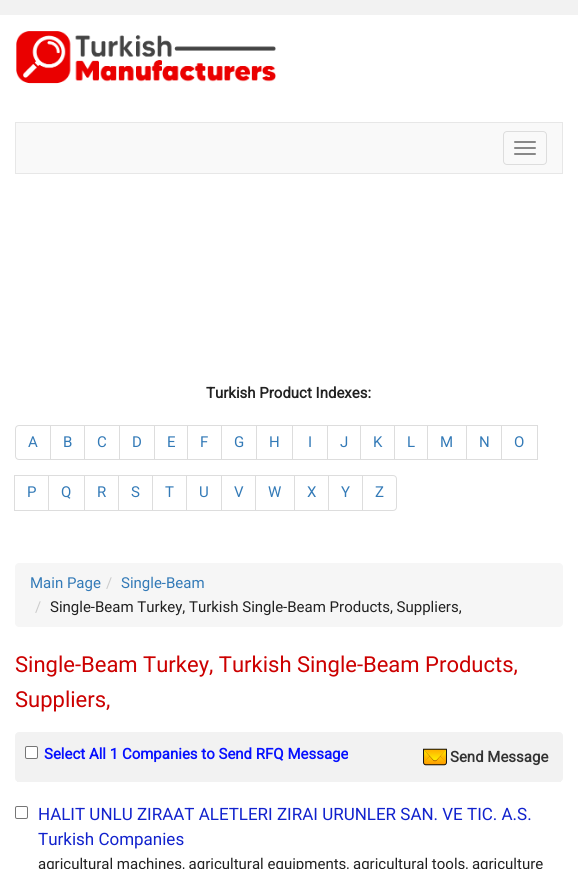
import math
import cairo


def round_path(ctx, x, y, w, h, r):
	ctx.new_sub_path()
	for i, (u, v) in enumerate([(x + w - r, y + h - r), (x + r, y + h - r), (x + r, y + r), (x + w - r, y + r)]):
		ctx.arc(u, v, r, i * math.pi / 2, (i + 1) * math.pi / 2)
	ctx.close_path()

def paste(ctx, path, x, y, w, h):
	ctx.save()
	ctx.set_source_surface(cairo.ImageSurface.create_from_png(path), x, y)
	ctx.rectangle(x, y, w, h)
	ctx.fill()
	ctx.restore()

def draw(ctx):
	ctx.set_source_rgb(0.949, 0.949, 0.949)
	ctx.paint()
	ctx.set_source_rgb(1, 1, 1)
	ctx.rectangle(0, 15, 578, 854)
	ctx.fill()
	paste(ctx, 'media/1.png', 16, 31, 260, 53)
	ctx.set_source_rgb(0.973, 0.973, 0.973)
	ctx.rectangle(15.5, 122.5, 547, 51)
	ctx.fill_preserve()
	ctx.set_source_rgb(0.906, 0.906, 0.906)
	ctx.set_line_width(1)
	ctx.stroke()
	round_path(ctx, 503.5, 131.5, 43, 33, 3.5)
	ctx.set_source_rgb(0.867, 0.867, 0.867)
	ctx.stroke()
	ctx.set_source_rgb(0.533, 0.533, 0.533)
	round_path(ctx, 514, 141, 22, 2, 1)
	ctx.fill()
	round_path(ctx, 514, 147, 22, 2, 1)
	ctx.fill()
	round_path(ctx, 514, 153, 22, 2, 1)
	ctx.fill()
	ctx.select_font_face('Roboto', cairo.FONT_SLANT_NORMAL, cairo.FONT_WEIGHT_BOLD)
	ctx.set_font_size(15)
	ctx.set_source_rgb(0.129, 0.129, 0.129)
	ctx.move_to(206, 398)
	ctx.show_text('Turkish Product Indexes:')
	ctx.new_path()
	ctx.move_to(19, 425.5)
	ctx.line_to(50.5, 425.5)
	ctx.line_to(50.5, 459.5)
	ctx.line_to(19, 459.5)
	ctx.curve_to(17, 459.5, 15.5, 458, 15.5, 456)
	ctx.line_to(15.5, 429)
	ctx.curve_to(15.5, 427, 17, 425.5, 19, 425.5)
	ctx.close_path()
	ctx.set_source_rgb(0.867, 0.867, 0.867)
	ctx.stroke()
	ctx.select_font_face('Roboto')
	ctx.set_source_rgb(0.2, 0.478, 0.718)
	ctx.move_to(28, 447)
	ctx.show_text('A')
	ctx.rectangle(50.5, 425.5, 34, 34)
	ctx.set_source_rgb(0.867, 0.867, 0.867)
	ctx.stroke()
	ctx.set_source_rgb(0.2, 0.478, 0.718)
	ctx.move_to(63, 447)
	ctx.show_text('B')
	ctx.rectangle(84.5, 425.5, 35, 34)
	ctx.set_source_rgb(0.867, 0.867, 0.867)
	ctx.stroke()
	ctx.set_source_rgb(0.2, 0.478, 0.718)
	ctx.move_to(97, 447)
	ctx.show_text('C')
	ctx.rectangle(119.5, 425.5, 35, 34)
	ctx.set_source_rgb(0.867, 0.867, 0.867)
	ctx.stroke()
	ctx.set_source_rgb(0.2, 0.478, 0.718)
	ctx.move_to(132, 447)
	ctx.show_text('D')
	ctx.rectangle(154.5, 425.5, 33, 34)
	ctx.set_source_rgb(0.867, 0.867, 0.867)
	ctx.stroke()
	ctx.set_source_rgb(0.2, 0.478, 0.718)
	ctx.move_to(167, 447)
	ctx.show_text('E')
	ctx.rectangle(187.5, 425.5, 34, 34)
	ctx.set_source_rgb(0.867, 0.867, 0.867)
	ctx.stroke()
	ctx.set_source_rgb(0.2, 0.478, 0.718)
	ctx.move_to(200, 447)
	ctx.show_text('F')
	ctx.rectangle(221.5, 425.5, 35, 34)
	ctx.set_source_rgb(0.867, 0.867, 0.867)
	ctx.stroke()
	ctx.set_source_rgb(0.2, 0.478, 0.718)
	ctx.move_to(234, 447)
	ctx.show_text('G')
	ctx.rectangle(256.5, 425.5, 36, 34)
	ctx.set_source_rgb(0.867, 0.867, 0.867)
	ctx.stroke()
	ctx.set_source_rgb(0.2, 0.478, 0.718)
	ctx.move_to(269, 447)
	ctx.show_text('H')
	ctx.rectangle(292.5, 425.5, 35, 34)
	ctx.set_source_rgb(0.867, 0.867, 0.867)
	ctx.stroke()
	ctx.set_source_rgb(0.2, 0.478, 0.718)
	ctx.move_to(308, 447)
	ctx.show_text('I')
	ctx.rectangle(327.5, 425.5, 33, 34)
	ctx.set_source_rgb(0.867, 0.867, 0.867)
	ctx.stroke()
	ctx.set_source_rgb(0.2, 0.478, 0.718)
	ctx.move_to(340, 447)
	ctx.show_text('J')
	ctx.rectangle(360.5, 425.5, 34, 34)
	ctx.set_source_rgb(0.867, 0.867, 0.867)
	ctx.stroke()
	ctx.set_source_rgb(0.2, 0.478, 0.718)
	ctx.move_to(373, 447)
	ctx.show_text('K')
	ctx.rectangle(394.5, 425.5, 33, 34)
	ctx.set_source_rgb(0.867, 0.867, 0.867)
	ctx.stroke()
	ctx.set_source_rgb(0.2, 0.478, 0.718)
	ctx.move_to(407, 447)
	ctx.show_text('L')
	ctx.rectangle(427.5, 425.5, 39, 34)
	ctx.set_source_rgb(0.867, 0.867, 0.867)
	ctx.stroke()
	ctx.set_source_rgb(0.2, 0.478, 0.718)
	ctx.move_to(440, 447)
	ctx.show_text('M')
	ctx.rectangle(466.5, 425.5, 35, 34)
	ctx.set_source_rgb(0.867, 0.867, 0.867)
	ctx.stroke()
	ctx.set_source_rgb(0.2, 0.478, 0.718)
	ctx.move_to(479, 447)
	ctx.show_text('N')
	ctx.rectangle(501.5, 425.5, 36, 34)
	ctx.set_source_rgb(0.867, 0.867, 0.867)
	ctx.stroke()
	ctx.set_source_rgb(0.2, 0.478, 0.718)
	ctx.move_to(514, 447)
	ctx.show_text('O')
	ctx.rectangle(14.5, 475.5, 34, 35)
	ctx.set_source_rgb(0.867, 0.867, 0.867)
	ctx.stroke()
	ctx.set_source_rgb(0.2, 0.478, 0.718)
	ctx.move_to(27, 497)
	ctx.show_text('P')
	ctx.rectangle(48.5, 475.5, 36, 35)
	ctx.set_source_rgb(0.867, 0.867, 0.867)
	ctx.stroke()
	ctx.set_source_rgb(0.2, 0.478, 0.718)
	ctx.move_to(61, 497)
	ctx.show_text('Q')
	ctx.rectangle(84.5, 475.5, 34, 35)
	ctx.set_source_rgb(0.867, 0.867, 0.867)
	ctx.stroke()
	ctx.set_source_rgb(0.2, 0.478, 0.718)
	ctx.move_to(97, 497)
	ctx.show_text('R')
	ctx.rectangle(118.5, 475.5, 34, 35)
	ctx.set_source_rgb(0.867, 0.867, 0.867)
	ctx.stroke()
	ctx.set_source_rgb(0.2, 0.478, 0.718)
	ctx.move_to(131, 497)
	ctx.show_text('S')
	ctx.rectangle(152.5, 475.5, 34, 35)
	ctx.set_source_rgb(0.867, 0.867, 0.867)
	ctx.stroke()
	ctx.set_source_rgb(0.2, 0.478, 0.718)
	ctx.move_to(165, 497)
	ctx.show_text('T')
	ctx.rectangle(186.5, 475.5, 35, 35)
	ctx.set_source_rgb(0.867, 0.867, 0.867)
	ctx.stroke()
	ctx.set_source_rgb(0.2, 0.478, 0.718)
	ctx.move_to(199, 497)
	ctx.show_text('U')
	ctx.rectangle(221.5, 475.5, 34, 35)
	ctx.set_source_rgb(0.867, 0.867, 0.867)
	ctx.stroke()
	ctx.set_source_rgb(0.2, 0.478, 0.718)
	ctx.move_to(234, 497)
	ctx.show_text('V')
	ctx.rectangle(255.5, 475.5, 39, 35)
	ctx.set_source_rgb(0.867, 0.867, 0.867)
	ctx.stroke()
	ctx.set_source_rgb(0.2, 0.478, 0.718)
	ctx.move_to(268, 497)
	ctx.show_text('W')
	ctx.rectangle(294.5, 475.5, 34, 35)
	ctx.set_source_rgb(0.867, 0.867, 0.867)
	ctx.stroke()
	ctx.set_source_rgb(0.2, 0.478, 0.718)
	ctx.move_to(307, 497)
	ctx.show_text('X')
	ctx.rectangle(328.5, 475.5, 34, 35)
	ctx.set_source_rgb(0.867, 0.867, 0.867)
	ctx.stroke()
	ctx.set_source_rgb(0.2, 0.478, 0.718)
	ctx.move_to(341, 497)
	ctx.show_text('Y')
	ctx.set_source_rgb(1, 1, 1)
	ctx.new_path()
	ctx.move_to(362.5, 475.5)
	ctx.line_to(393, 475.5)
	ctx.curve_to(395, 475.5, 396.5, 477, 396.5, 479)
	ctx.line_to(396.5, 507)
	ctx.curve_to(396.5, 509, 395, 510.5, 393, 510.5)
	ctx.line_to(362.5, 510.5)
	ctx.close_path()
	ctx.fill_preserve()
	ctx.set_source_rgb(0.867, 0.867, 0.867)
	ctx.stroke()
	ctx.set_source_rgb(0.2, 0.478, 0.718)
	ctx.move_to(375, 497)
	ctx.show_text('Z')
	ctx.set_source_rgb(0.961, 0.961, 0.961)
	round_path(ctx, 15, 563, 548, 64, 4)
	ctx.fill()
	ctx.set_source_rgb(0.2, 0.478, 0.718)
	ctx.move_to(30, 588)
	ctx.show_text('Main Page')
	ctx.set_source_rgb(0.8, 0.8, 0.8)
	ctx.move_to(106, 588)
	ctx.show_text('/')
	ctx.set_source_rgb(0.2, 0.478, 0.718)
	ctx.move_to(121, 588)
	ctx.show_text('Single-Beam')
	ctx.set_source_rgb(0.8, 0.8, 0.8)
	ctx.move_to(35, 612)
	ctx.show_text('/')
	ctx.set_source_rgb(0.129, 0.129, 0.129)
	ctx.move_to(50, 612)
	ctx.show_text('Single-Beam Turkey, Turkish Single-Beam Products, Suppliers,')
	ctx.set_font_size(22)
	ctx.set_source_rgb(0.8, 0, 0)
	ctx.move_to(15, 672)
	ctx.show_text('Single-Beam Turkey, Turkish Single-Beam Products,')
	ctx.move_to(15, 707)
	ctx.show_text('Suppliers,')
	ctx.set_source_rgb(0.949, 0.949, 0.949)
	round_path(ctx, 15, 732, 548, 50, 4)
	ctx.fill()
	ctx.rectangle(17, 781, 544, 1)
	ctx.fill()
	ctx.set_source_rgb(1, 1, 1)
	round_path(ctx, 25.5, 746.5, 12, 12, 1.5)
	ctx.fill_preserve()
	ctx.set_source_rgb(0.463, 0.463, 0.463)
	ctx.stroke()
	ctx.select_font_face('Roboto', cairo.FONT_SLANT_NORMAL, cairo.FONT_WEIGHT_BOLD)
	ctx.set_font_size(15)
	ctx.set_source_rgb(0.024, 0.063, 1)
	ctx.move_to(44, 759)
	ctx.show_text('Select All 1 Companies to Send RFQ Message')
	paste(ctx, 'media/2.png', 423, 748, 24, 18)
	ctx.set_source_rgb(0.2, 0.2, 0.2)
	ctx.move_to(450, 762)
	ctx.show_text('Send Message')
	round_path(ctx, 15.5, 806.5, 12, 12, 1.5)
	ctx.set_source_rgb(0.463, 0.463, 0.463)
	ctx.stroke()
	ctx.select_font_face('Roboto')
	ctx.set_font_size(17)
	ctx.set_source_rgb(0.067, 0.133, 0.804)
	ctx.move_to(38, 820)
	ctx.show_text('HALIT UNLU ZIRAAT ALETLERI ZIRAI URUNLER SAN. VE TIC. A.S.')
	ctx.move_to(38, 845)
	ctx.show_text('Turkish Companies')
	ctx.set_font_size(15)
	ctx.set_source_rgb(0.129, 0.129, 0.129)
	ctx.move_to(38, 869)
	ctx.show_text('agricultural machines, agricultural equipments, agricultural tools, agriculture')


surface = cairo.ImageSurface(cairo.FORMAT_RGB24, 578, 869)
ctx = cairo.Context(surface)
options = cairo.FontOptions()
options.set_hint_metrics(cairo.HINT_METRICS_OFF)
options.set_hint_style(cairo.HINT_STYLE_NONE)
ctx.set_font_options(options)
ctx.set_miter_limit(4)
draw(ctx)
surface.write_to_png('image.png')
